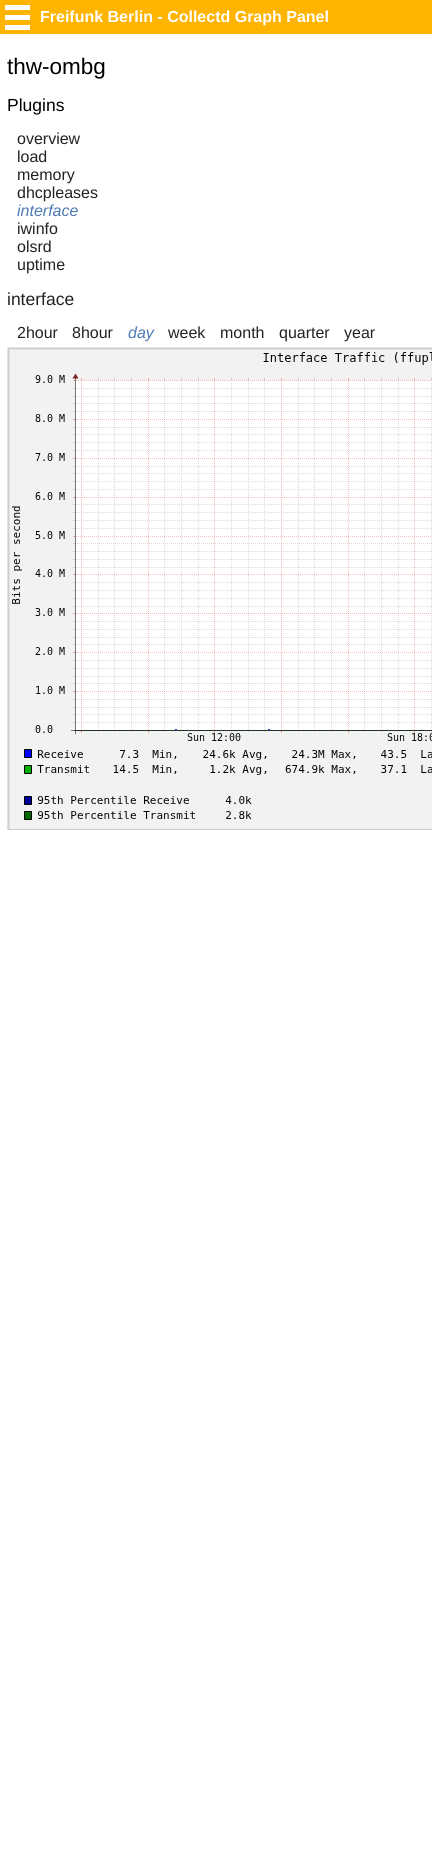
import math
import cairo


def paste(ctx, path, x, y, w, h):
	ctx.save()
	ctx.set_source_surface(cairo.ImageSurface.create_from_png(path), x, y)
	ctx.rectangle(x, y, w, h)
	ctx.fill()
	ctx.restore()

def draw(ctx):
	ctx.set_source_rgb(1, 1, 1)
	ctx.paint()
	ctx.set_source_rgb(1, 0.706, 0)
	ctx.rectangle(0, 0, 432, 34)
	ctx.fill()
	ctx.select_font_face('Liberation Sans', cairo.FONT_SLANT_NORMAL, cairo.FONT_WEIGHT_BOLD)
	ctx.set_font_size(16)
	ctx.set_source_rgb(1, 1, 1)
	ctx.move_to(40, 22)
	ctx.show_text('Freifunk Berlin - Collectd Graph Panel')
	ctx.rectangle(5, 5, 25, 5)
	ctx.rectangle(5, 25, 25, 5)
	ctx.rectangle(5, 15, 25, 5)
	ctx.fill()
	ctx.select_font_face('Liberation Sans')
	ctx.set_font_size(22.5)
	ctx.set_source_rgb(0, 0, 0)
	ctx.move_to(7, 74)
	ctx.show_text('thw-ombg')
	ctx.set_font_size(17.5)
	ctx.move_to(7, 111)
	ctx.show_text('Plugins')
	ctx.set_font_size(16)
	ctx.set_source_rgb(0.133, 0.133, 0.133)
	for x, y, s in [
		(17, 144, 'overview'),
		(17, 162, 'load'),
		(17, 180, 'memory'),
		(17, 198, 'dhcpleases'),
	]:
		ctx.move_to(x, y)
		ctx.show_text(s)
	ctx.select_font_face('Liberation Sans', cairo.FONT_SLANT_ITALIC)
	ctx.set_source_rgb(0.302, 0.475, 0.71)
	ctx.move_to(17, 216)
	ctx.show_text('interface')
	ctx.select_font_face('Liberation Sans')
	ctx.set_source_rgb(0.133, 0.133, 0.133)
	for x, y, s in [
		(17, 234, 'iwinfo'),
		(17, 252, 'olsrd'),
		(17, 270, 'uptime'),
	]:
		ctx.move_to(x, y)
		ctx.show_text(s)
	ctx.set_font_size(17.5)
	ctx.move_to(7, 305)
	ctx.show_text('interface')
	ctx.set_font_size(16)
	ctx.move_to(17, 338)
	ctx.show_text('2hour')
	ctx.move_to(72, 338)
	ctx.show_text('8hour')
	ctx.select_font_face('Liberation Sans', cairo.FONT_SLANT_ITALIC)
	ctx.set_source_rgb(0.302, 0.475, 0.71)
	ctx.move_to(128, 338)
	ctx.show_text('day')
	ctx.select_font_face('Liberation Sans')
	ctx.set_source_rgb(0.133, 0.133, 0.133)
	for x, y, s in [
		(168, 338, 'week'),
		(220, 338, 'month'),
		(279, 338, 'quarter'),
		(344, 338, 'year'),
	]:
		ctx.move_to(x, y)
		ctx.show_text(s)
	paste(ctx, 'media/1.png', 7, 347, 425, 483)


surface = cairo.ImageSurface(cairo.FORMAT_RGB24, 432, 1865)
ctx = cairo.Context(surface)
options = cairo.FontOptions()
options.set_hint_metrics(cairo.HINT_METRICS_OFF)
options.set_hint_style(cairo.HINT_STYLE_NONE)
ctx.set_font_options(options)
ctx.set_miter_limit(4)
draw(ctx)
surface.write_to_png('image.png')
